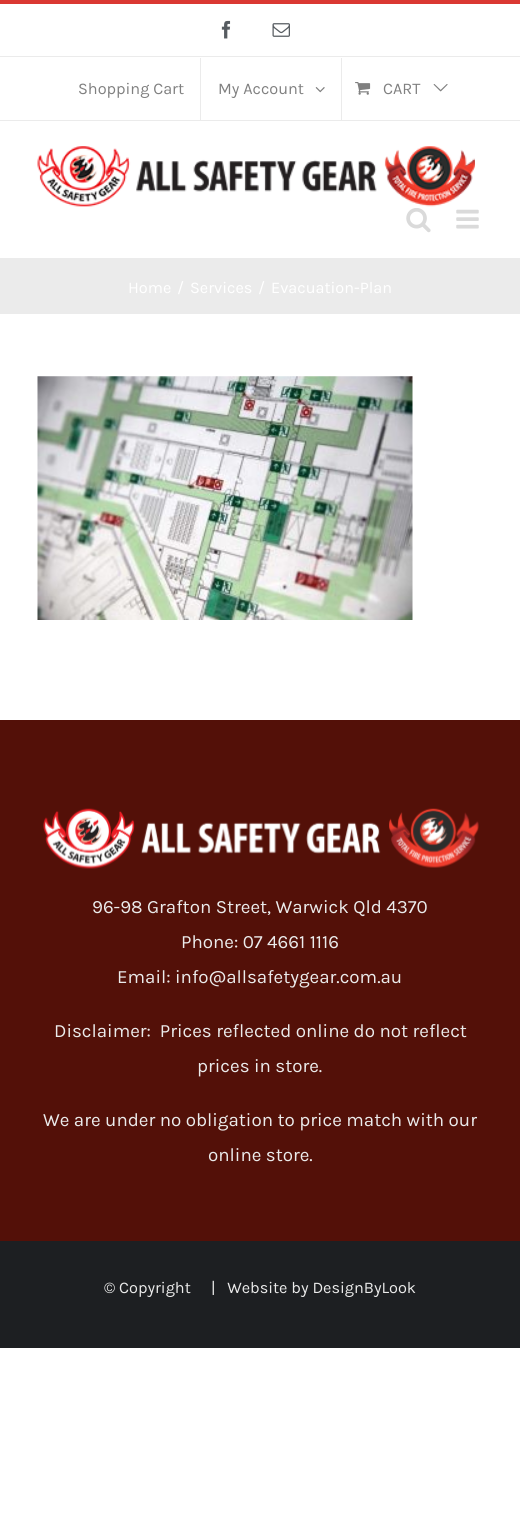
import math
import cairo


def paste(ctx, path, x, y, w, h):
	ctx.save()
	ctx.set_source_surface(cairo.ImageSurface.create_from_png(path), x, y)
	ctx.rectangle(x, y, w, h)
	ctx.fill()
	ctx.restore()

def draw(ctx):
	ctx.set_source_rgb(1, 1, 1)
	ctx.paint()
	ctx.set_source_rgb(0.855, 0.22, 0.196)
	ctx.rectangle(0, 0, 520, 4)
	ctx.fill()
	ctx.set_source_rgb(0.918, 0.918, 0.918)
	ctx.rectangle(0, 120, 520, 1)
	ctx.rectangle(0, 56, 520, 1)
	ctx.fill()
	paste(ctx, 'media/1.png', 221, 20, 10, 19)
	paste(ctx, 'media/2.png', 272, 23, 18, 14)
	ctx.select_font_face('Karla')
	ctx.set_font_size(16.25)
	ctx.set_source_rgb(0.502, 0.502, 0.502)
	ctx.move_to(78, 94)
	ctx.show_text('Shopping Cart')
	ctx.set_source_rgb(0.918, 0.918, 0.918)
	ctx.rectangle(200, 58, 1, 62)
	ctx.fill()
	ctx.set_source_rgb(0.502, 0.502, 0.502)
	ctx.move_to(218, 94)
	ctx.show_text('My Account')
	paste(ctx, 'media/3.png', 315, 87, 10, 6)
	ctx.set_source_rgb(0.918, 0.918, 0.918)
	ctx.rectangle(341, 58, 1, 62)
	ctx.fill()
	paste(ctx, 'media/4.png', 355, 82, 16, 13)
	ctx.set_source_rgb(0.502, 0.502, 0.502)
	ctx.move_to(383, 94)
	ctx.show_text('CART')
	paste(ctx, 'media/5.png', 433, 84, 15, 8)
	paste(ctx, 'media/6.png', 37, 146, 438, 61)
	paste(ctx, 'media/7.png', 406, 208, 25, 25)
	paste(ctx, 'media/8.png', 456, 209, 23, 20)
	ctx.set_source_rgb(0.918, 0.918, 0.918)
	ctx.rectangle(0, 258, 520, 56)
	ctx.fill()
	ctx.set_source_rgb(1, 1, 1)
	for x, y, s in [
		(128, 293, 'Home'),
		(177, 293, '/'),
		(190, 293, 'Services'),
		(258, 293, '/'),
		(271, 293, 'Evacuation-Plan'),
	]:
		ctx.move_to(x, y)
		ctx.show_text(s)
	paste(ctx, 'media/9.png', 37, 376, 376, 244)
	ctx.set_source_rgb(0.325, 0.063, 0.035)
	ctx.rectangle(0, 720, 520, 521)
	ctx.fill()
	paste(ctx, 'media/10.png', 43, 808, 436, 61)
	ctx.set_font_size(18.75)
	ctx.set_source_rgb(0.918, 0.918, 0.918)
	for x, y, s in [
		(92, 913, '96-98 Grafton Street, Warwick Qld 4370'),
		(181, 948, 'Phone: 07 4661 1116'),
		(117, 983, 'Email: info@allsafetygear.com.au'),
		(54, 1037, 'Disclaimer:  Prices reflected online do not reflect'),
		(197, 1072, 'prices in store.'),
		(43, 1126, 'We are under no obligation to price match with our'),
		(208, 1161, 'online store.'),
	]:
		ctx.move_to(x, y)
		ctx.show_text(s)
	ctx.set_source_rgb(0.114, 0.122, 0.133)
	ctx.rectangle(0, 1241, 520, 107)
	ctx.fill()
	ctx.set_font_size(16.25)
	ctx.set_source_rgb(0.918, 0.918, 0.918)
	ctx.move_to(104, 1293)
	ctx.show_text('© Copyright')
	ctx.move_to(211, 1293)
	ctx.show_text('|   Website by DesignByLook')


surface = cairo.ImageSurface(cairo.FORMAT_RGB24, 520, 1514)
ctx = cairo.Context(surface)
options = cairo.FontOptions()
options.set_hint_metrics(cairo.HINT_METRICS_OFF)
options.set_hint_style(cairo.HINT_STYLE_NONE)
ctx.set_font_options(options)
ctx.set_miter_limit(4)
draw(ctx)
surface.write_to_png('image.png')
